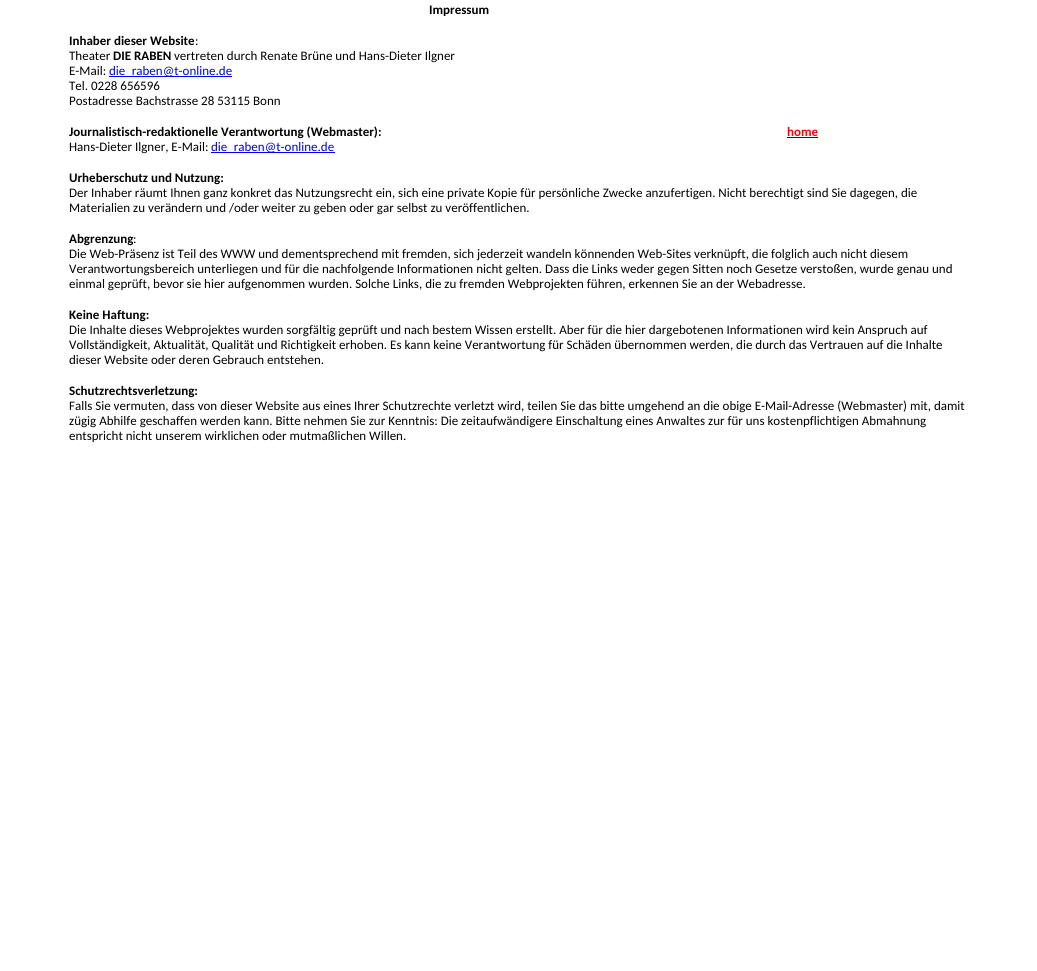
import math
import cairo


def draw(ctx):
	ctx.set_source_rgb(1, 1, 1)
	ctx.paint()
	ctx.select_font_face('Carlito', cairo.FONT_SLANT_NORMAL, cairo.FONT_WEIGHT_BOLD)
	ctx.set_font_size(13)
	ctx.set_source_rgb(0, 0, 0)
	ctx.move_to(429, 14)
	ctx.show_text('Impressum')
	ctx.move_to(69, 45)
	ctx.show_text('Inhaber dieser Website')
	ctx.select_font_face('Carlito')
	ctx.move_to(195, 45)
	ctx.show_text(':')
	ctx.move_to(69, 60)
	ctx.show_text('Theater')
	ctx.select_font_face('Carlito', cairo.FONT_SLANT_NORMAL, cairo.FONT_WEIGHT_BOLD)
	ctx.move_to(113, 60)
	ctx.show_text('DIE RABEN')
	ctx.select_font_face('Carlito')
	ctx.move_to(174, 60)
	ctx.show_text('vertreten durch Renate Brüne und Hans-Dieter Ilgner')
	ctx.move_to(69, 75)
	ctx.show_text('E-Mail:')
	ctx.set_source_rgb(0, 0, 0.933)
	ctx.rectangle(109, 76, 123, 1)
	ctx.fill()
	ctx.move_to(109, 75)
	ctx.show_text('die_raben@t-online.de')
	ctx.set_source_rgb(0, 0, 0)
	ctx.move_to(69, 90)
	ctx.show_text('Tel. 0228 656596')
	ctx.move_to(69, 105)
	ctx.show_text('Postadresse Bachstrasse 28 53115 Bonn')
	ctx.select_font_face('Carlito', cairo.FONT_SLANT_NORMAL, cairo.FONT_WEIGHT_BOLD)
	ctx.move_to(69, 136)
	ctx.show_text('Journalistisch-redaktionelle Verantwortung (Webmaster):')
	ctx.set_source_rgb(1, 0, 0)
	ctx.move_to(787, 136)
	ctx.show_text('home')
	ctx.set_source_rgb(0, 0, 0.933)
	ctx.rectangle(787, 137, 31, 1)
	ctx.fill()
	ctx.select_font_face('Carlito')
	ctx.set_source_rgb(0, 0, 0)
	ctx.move_to(69, 151)
	ctx.show_text('Hans-Dieter Ilgner, E-Mail:')
	ctx.set_source_rgb(0, 0, 0.933)
	ctx.rectangle(211, 152, 124, 1)
	ctx.fill()
	ctx.move_to(211, 151)
	ctx.show_text('die_raben@t-online.de')
	ctx.select_font_face('Carlito', cairo.FONT_SLANT_NORMAL, cairo.FONT_WEIGHT_BOLD)
	ctx.set_source_rgb(0, 0, 0)
	ctx.move_to(69, 182)
	ctx.show_text('Urheberschutz und Nutzung:')
	ctx.select_font_face('Carlito')
	ctx.move_to(69, 197)
	ctx.show_text('Der Inhaber räumt Ihnen ganz konkret das Nutzungsrecht ein, sich eine private Kopie für persönliche Zwecke anzufertigen. Nicht berechtigt sind Sie dagegen, die')
	ctx.move_to(69, 212)
	ctx.show_text('Materialien zu verändern und /oder weiter zu geben oder gar selbst zu veröffentlichen.')
	ctx.select_font_face('Carlito', cairo.FONT_SLANT_NORMAL, cairo.FONT_WEIGHT_BOLD)
	ctx.move_to(69, 243)
	ctx.show_text('Abgrenzung')
	ctx.select_font_face('Carlito')
	for x, y, s in [
		(133, 243, ':'),
		(69, 258, 'Die Web-Präsenz ist Teil des WWW und dementsprechend mit fremden, sich jederzeit wandeln könnenden Web-Sites verknüpft, die folglich auch nicht diesem'),
		(69, 273, 'Verantwortungsbereich unterliegen und für die nachfolgende Informationen nicht gelten. Dass die Links weder gegen Sitten noch Gesetze verstoßen, wurde genau und'),
		(69, 288, 'einmal geprüft, bevor sie hier aufgenommen wurden. Solche Links, die zu fremden Webprojekten führen, erkennen Sie an der Webadresse.'),
	]:
		ctx.move_to(x, y)
		ctx.show_text(s)
	ctx.select_font_face('Carlito', cairo.FONT_SLANT_NORMAL, cairo.FONT_WEIGHT_BOLD)
	ctx.move_to(69, 319)
	ctx.show_text('Keine Haftung:')
	ctx.select_font_face('Carlito')
	for x, y, s in [
		(69, 334, 'Die Inhalte dieses Webprojektes wurden sorgfältig geprüft und nach bestem Wissen erstellt. Aber für die hier dargebotenen Informationen wird kein Anspruch auf'),
		(69, 349, 'Vollständigkeit, Aktualität, Qualität und Richtigkeit erhoben. Es kann keine Verantwortung für Schäden übernommen werden, die durch das Vertrauen auf die Inhalte'),
		(69, 364, 'dieser Website oder deren Gebrauch entstehen.'),
	]:
		ctx.move_to(x, y)
		ctx.show_text(s)
	ctx.select_font_face('Carlito', cairo.FONT_SLANT_NORMAL, cairo.FONT_WEIGHT_BOLD)
	ctx.move_to(69, 395)
	ctx.show_text('Schutzrechtsverletzung:')
	ctx.select_font_face('Carlito')
	for x, y, s in [
		(69, 410, 'Falls Sie vermuten, dass von dieser Website aus eines Ihrer Schutzrechte verletzt wird, teilen Sie das bitte umgehend an die obige E-Mail-Adresse (Webmaster) mit, damit'),
		(69, 425, 'zügig Abhilfe geschaffen werden kann. Bitte nehmen Sie zur Kenntnis: Die zeitaufwändigere Einschaltung eines Anwaltes zur für uns kostenpflichtigen Abmahnung'),
		(69, 440, 'entspricht nicht unserem wirklichen oder mutmaßlichen Willen.'),
	]:
		ctx.move_to(x, y)
		ctx.show_text(s)


surface = cairo.ImageSurface(cairo.FORMAT_RGB24, 1037, 971)
ctx = cairo.Context(surface)
options = cairo.FontOptions()
options.set_hint_metrics(cairo.HINT_METRICS_OFF)
options.set_hint_style(cairo.HINT_STYLE_NONE)
ctx.set_font_options(options)
ctx.set_miter_limit(4)
draw(ctx)
surface.write_to_png('image.png')
